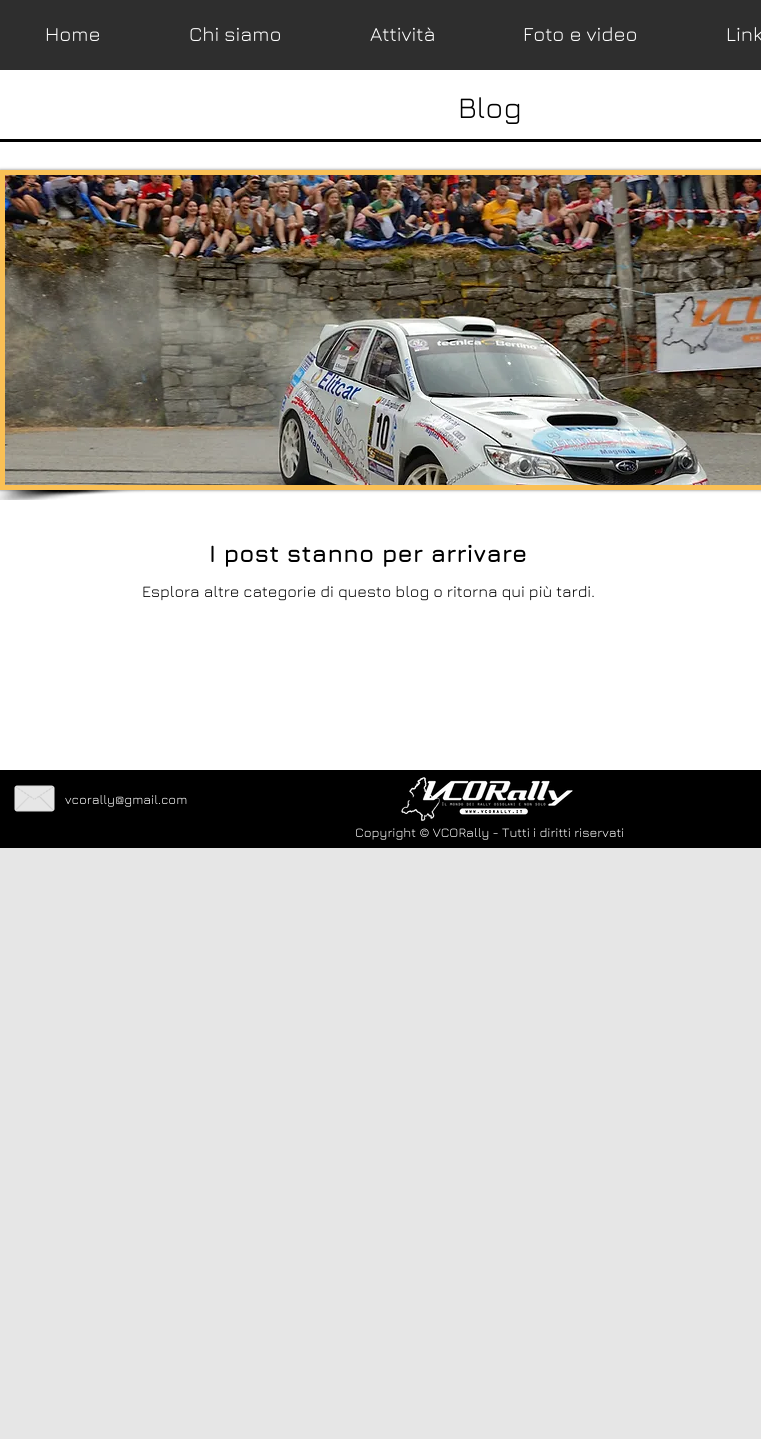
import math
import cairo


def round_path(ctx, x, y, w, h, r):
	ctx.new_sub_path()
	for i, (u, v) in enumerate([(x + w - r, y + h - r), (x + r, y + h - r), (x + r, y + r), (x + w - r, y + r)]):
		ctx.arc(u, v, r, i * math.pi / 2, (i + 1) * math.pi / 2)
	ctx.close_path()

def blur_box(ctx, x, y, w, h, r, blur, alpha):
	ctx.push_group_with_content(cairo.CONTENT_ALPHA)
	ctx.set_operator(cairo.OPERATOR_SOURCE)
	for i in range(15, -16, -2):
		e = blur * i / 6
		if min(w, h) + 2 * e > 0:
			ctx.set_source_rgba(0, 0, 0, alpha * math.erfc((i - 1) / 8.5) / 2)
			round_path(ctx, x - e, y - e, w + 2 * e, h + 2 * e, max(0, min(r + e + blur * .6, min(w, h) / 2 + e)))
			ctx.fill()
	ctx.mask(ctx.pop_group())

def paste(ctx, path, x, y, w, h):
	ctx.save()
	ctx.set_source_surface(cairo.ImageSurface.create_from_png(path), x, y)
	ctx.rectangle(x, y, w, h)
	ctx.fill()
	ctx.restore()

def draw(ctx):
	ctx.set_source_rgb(0.902, 0.902, 0.902)
	ctx.paint()
	ctx.set_source_rgb(0.18, 0.18, 0.18)
	ctx.rectangle(0, 0, 761, 70)
	ctx.fill()
	ctx.select_font_face('Jura')
	ctx.set_font_size(20)
	ctx.set_source_rgb(1, 1, 1)
	for x, y, s in [
		(45, 41, 'Home'),
		(189, 41, 'Chi siamo'),
		(370, 41, 'Attività'),
		(523, 41, 'Foto e video'),
		(726, 41, 'Link'),
	]:
		ctx.move_to(x, y)
		ctx.show_text(s)
	ctx.rectangle(0, 70, 761, 700)
	ctx.fill()
	ctx.set_font_size(30)
	ctx.set_source_rgb(0, 0, 0)
	ctx.move_to(458, 118)
	ctx.show_text('Blog')
	ctx.rectangle(0, 139, 761, 3)
	ctx.fill()
	ctx.set_source_rgb(0, 0, 0)
	blur_box(ctx, 0, 170, 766, 320, 0, 1.5, 0.5)
	ctx.set_source_rgb(0.98, 0.753, 0.333)
	ctx.rectangle(0, 170, 761, 320)
	ctx.fill()
	paste(ctx, 'media/1.png', 5, 175, 756, 310)
	paste(ctx, 'media/2.png', 0, 490, 145, 10)
	ctx.select_font_face('Jura', cairo.FONT_SLANT_NORMAL, cairo.FONT_WEIGHT_BOLD)
	ctx.set_font_size(24)
	ctx.set_source_rgb(0, 0, 0)
	ctx.move_to(209, 562)
	ctx.show_text('I post stanno per arrivare')
	ctx.select_font_face('Jura')
	ctx.set_font_size(16)
	ctx.move_to(142, 597)
	ctx.show_text('Esplora altre categorie di questo blog o ritorna qui più tardi.')
	ctx.rectangle(0, 770, 761, 78)
	ctx.fill()
	paste(ctx, 'media/3.png', 14, 785, 41, 27)
	ctx.set_font_size(13)
	ctx.set_source_rgb(1, 1, 1)
	ctx.move_to(65, 804)
	ctx.show_text('vcorally@gmail.com')
	paste(ctx, 'media/4.png', 401, 777, 172, 44)
	ctx.move_to(355, 837)
	ctx.show_text('Copyright © VCORally - Tutti i diritti riservati')


surface = cairo.ImageSurface(cairo.FORMAT_RGB24, 761, 1439)
ctx = cairo.Context(surface)
options = cairo.FontOptions()
options.set_hint_metrics(cairo.HINT_METRICS_OFF)
options.set_hint_style(cairo.HINT_STYLE_NONE)
ctx.set_font_options(options)
ctx.set_miter_limit(4)
draw(ctx)
surface.write_to_png('image.png')
